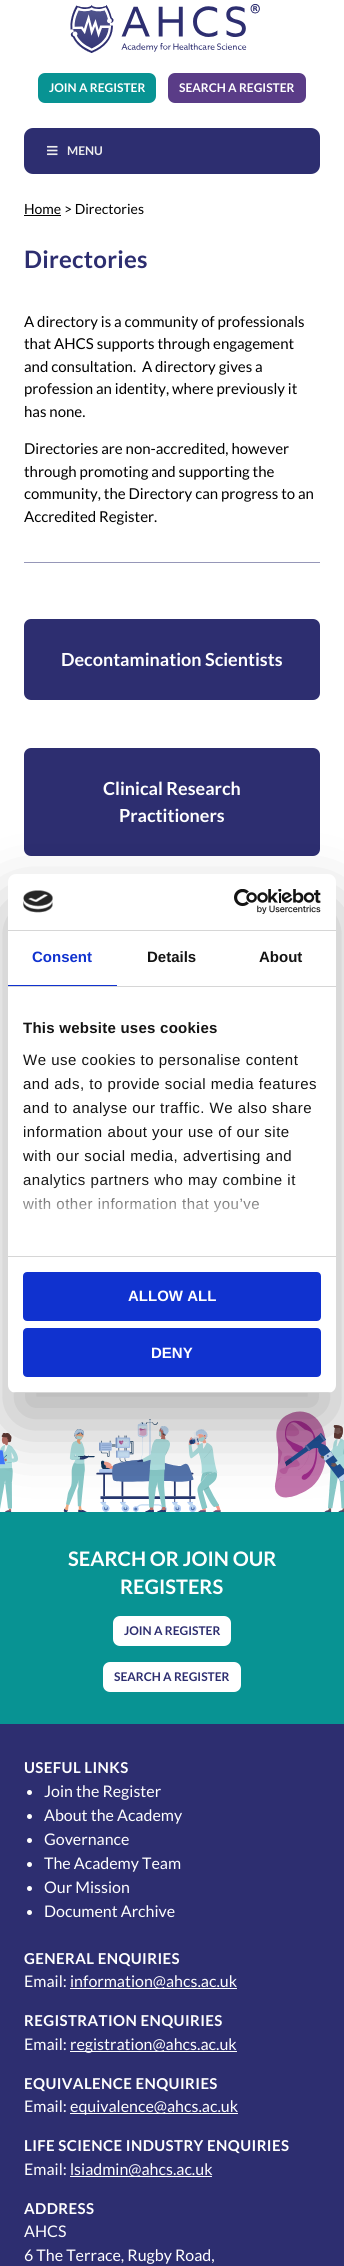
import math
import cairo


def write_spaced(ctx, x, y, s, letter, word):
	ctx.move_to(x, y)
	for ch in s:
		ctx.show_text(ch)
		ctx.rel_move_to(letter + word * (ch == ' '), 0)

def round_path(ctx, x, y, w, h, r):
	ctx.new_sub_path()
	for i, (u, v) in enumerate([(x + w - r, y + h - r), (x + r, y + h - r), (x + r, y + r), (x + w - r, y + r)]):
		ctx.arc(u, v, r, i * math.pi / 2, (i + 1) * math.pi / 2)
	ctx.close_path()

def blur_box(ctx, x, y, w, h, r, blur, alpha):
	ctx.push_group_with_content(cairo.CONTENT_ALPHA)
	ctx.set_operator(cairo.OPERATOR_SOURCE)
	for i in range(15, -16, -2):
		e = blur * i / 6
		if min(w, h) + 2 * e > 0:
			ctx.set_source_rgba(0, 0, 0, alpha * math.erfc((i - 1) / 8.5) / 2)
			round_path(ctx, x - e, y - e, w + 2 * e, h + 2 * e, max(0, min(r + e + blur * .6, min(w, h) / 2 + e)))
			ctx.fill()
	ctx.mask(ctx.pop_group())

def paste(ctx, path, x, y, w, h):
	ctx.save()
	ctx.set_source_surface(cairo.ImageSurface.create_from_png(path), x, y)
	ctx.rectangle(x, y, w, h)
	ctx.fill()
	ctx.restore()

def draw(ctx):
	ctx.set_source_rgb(1, 1, 1)
	ctx.paint()
	paste(ctx, 'media/1.png', 70, 4, 190, 49)
	ctx.set_source_rgb(0.035, 0.576, 0.576)
	round_path(ctx, 38, 73, 118, 30, 7)
	ctx.fill()
	ctx.select_font_face('Lato', cairo.FONT_SLANT_NORMAL, cairo.FONT_WEIGHT_BOLD)
	ctx.set_font_size(12)
	ctx.set_source_rgb(1, 1, 1)
	ctx.move_to(49, 92)
	ctx.show_text('JOIN A REGISTER')
	ctx.set_source_rgb(0.353, 0.235, 0.529)
	round_path(ctx, 168, 73, 138, 30, 7)
	ctx.fill()
	ctx.set_source_rgb(1, 1, 1)
	ctx.move_to(179, 92)
	ctx.show_text('SEARCH A REGISTER')
	ctx.set_source_rgb(0.176, 0.18, 0.439)
	round_path(ctx, 24, 128, 296, 46, 9)
	ctx.fill()
	paste(ctx, 'media/2.png', 47, 145, 11, 11)
	ctx.set_source_rgb(0.933, 0.933, 0.933)
	ctx.move_to(67, 155)
	ctx.show_text('MENU')
	ctx.select_font_face('Lato')
	ctx.set_font_size(14)
	ctx.set_source_rgb(0, 0, 0)
	ctx.move_to(24, 214)
	ctx.show_text('Home > Directories')
	ctx.rectangle(24, 215, 37, 1)
	ctx.fill()
	ctx.select_font_face('Lato', cairo.FONT_SLANT_NORMAL, cairo.FONT_WEIGHT_BOLD)
	ctx.set_font_size(24)
	ctx.set_source_rgb(0.176, 0.18, 0.439)
	write_spaced(ctx, 24, 268, 'Directories', 0.25, 0)
	ctx.select_font_face('Lato')
	ctx.set_font_size(15)
	ctx.set_source_rgb(0, 0, 0)
	for x, y, s in [
		(24, 327, 'A directory is a community of professionals'),
		(24, 349, 'that AHCS supports through engagement'),
		(24, 372, 'and consultation.  A directory gives a'),
		(24, 394, 'profession an identity, where previously it'),
		(24, 417, 'has none.'),
		(24, 454, 'Directories are non-accredited, however'),
		(24, 477, 'through promoting and supporting the'),
		(24, 499, 'community, the Directory can progress to an'),
		(24, 522, 'Accredited Register.'),
	]:
		ctx.move_to(x, y)
		ctx.show_text(s)
	ctx.set_source_rgb(0.588, 0.592, 0.722)
	ctx.rectangle(24, 562, 296, 1)
	ctx.fill()
	ctx.set_source_rgb(0.176, 0.18, 0.439)
	round_path(ctx, 24, 619, 296, 81, 7)
	ctx.fill()
	ctx.select_font_face('Lato', cairo.FONT_SLANT_NORMAL, cairo.FONT_WEIGHT_BOLD)
	ctx.set_font_size(18)
	ctx.set_source_rgb(1, 1, 1)
	ctx.move_to(61, 666)
	ctx.show_text('Decontamination Scientists')
	ctx.set_source_rgb(0.176, 0.18, 0.439)
	round_path(ctx, 24, 748, 296, 108, 7)
	ctx.fill()
	ctx.set_source_rgb(1, 1, 1)
	ctx.move_to(103, 795)
	ctx.show_text('Clinical Research')
	ctx.move_to(119, 822)
	ctx.show_text('Practitioners')
	paste(ctx, 'media/3.png', 0, 1411, 344, 101)
	ctx.set_source_rgb(0.035, 0.576, 0.576)
	ctx.rectangle(0, 1512, 344, 212)
	ctx.fill()
	ctx.set_font_size(20)
	ctx.set_source_rgb(1, 1, 1)
	ctx.move_to(68, 1566)
	ctx.show_text('SEARCH OR JOIN OUR')
	ctx.move_to(120, 1594)
	ctx.show_text('REGISTERS')
	round_path(ctx, 113, 1616, 118, 30, 7)
	ctx.fill()
	ctx.set_font_size(12)
	ctx.set_source_rgb(0.176, 0.18, 0.439)
	ctx.move_to(124, 1635)
	ctx.show_text('JOIN A REGISTER')
	ctx.set_source_rgb(1, 1, 1)
	round_path(ctx, 103, 1662, 138, 30, 7)
	ctx.fill()
	ctx.set_source_rgb(0.176, 0.18, 0.439)
	ctx.move_to(114, 1681)
	ctx.show_text('SEARCH A REGISTER')
	ctx.rectangle(0, 1724, 344, 542)
	ctx.fill()
	ctx.set_font_size(15)
	ctx.set_source_rgb(1, 1, 1)
	write_spaced(ctx, 24, 1773, 'USEFUL LINKS', 0.4, 0)
	ctx.new_path()
	ctx.arc(29.5, 1792.5, 2.5, 0, 2 * math.pi)
	ctx.fill()
	ctx.select_font_face('Lato')
	ctx.set_font_size(16)
	ctx.move_to(44, 1797)
	ctx.show_text('Join the Register')
	ctx.new_path()
	ctx.arc(29.5, 1816.5, 2.5, 0, 2 * math.pi)
	ctx.fill()
	ctx.move_to(44, 1821)
	ctx.show_text('About the Academy')
	ctx.new_path()
	ctx.arc(29.5, 1840.5, 2.5, 0, 2 * math.pi)
	ctx.fill()
	ctx.move_to(44, 1845)
	ctx.show_text('Governance')
	ctx.new_path()
	ctx.arc(29.5, 1864.5, 2.5, 0, 2 * math.pi)
	ctx.fill()
	ctx.move_to(44, 1869)
	ctx.show_text('The Academy Team')
	ctx.new_path()
	ctx.arc(29.5, 1888.5, 2.5, 0, 2 * math.pi)
	ctx.fill()
	ctx.move_to(44, 1893)
	ctx.show_text('Our Mission')
	ctx.new_path()
	ctx.arc(29.5, 1912.5, 2.5, 0, 2 * math.pi)
	ctx.fill()
	ctx.move_to(44, 1917)
	ctx.show_text('Document Archive')
	ctx.select_font_face('Lato', cairo.FONT_SLANT_NORMAL, cairo.FONT_WEIGHT_BOLD)
	ctx.set_font_size(15)
	write_spaced(ctx, 24, 1964, 'GENERAL ENQUIRIES', 0.4, 0)
	ctx.select_font_face('Lato')
	ctx.set_font_size(16)
	ctx.move_to(24, 1987)
	ctx.show_text('Email:')
	ctx.rectangle(70, 1988, 167, 1)
	ctx.fill()
	ctx.move_to(70, 1987)
	ctx.show_text('information@ahcs.ac.uk')
	ctx.select_font_face('Lato', cairo.FONT_SLANT_NORMAL, cairo.FONT_WEIGHT_BOLD)
	ctx.set_font_size(15)
	write_spaced(ctx, 24, 2026, 'REGISTRATION ENQUIRIES', 0.4, 0)
	ctx.select_font_face('Lato')
	ctx.set_font_size(16)
	ctx.move_to(24, 2050)
	ctx.show_text('Email:')
	ctx.rectangle(70, 2051, 167, 1)
	ctx.fill()
	ctx.move_to(70, 2050)
	ctx.show_text('registration@ahcs.ac.uk')
	ctx.select_font_face('Lato', cairo.FONT_SLANT_NORMAL, cairo.FONT_WEIGHT_BOLD)
	ctx.set_font_size(15)
	write_spaced(ctx, 24, 2089, 'EQUIVALENCE ENQUIRIES', 0.4, 0)
	ctx.select_font_face('Lato')
	ctx.set_font_size(16)
	ctx.move_to(24, 2112)
	ctx.show_text('Email:')
	ctx.rectangle(70, 2113, 168, 1)
	ctx.fill()
	ctx.move_to(70, 2112)
	ctx.show_text('equivalence@ahcs.ac.uk')
	ctx.select_font_face('Lato', cairo.FONT_SLANT_NORMAL, cairo.FONT_WEIGHT_BOLD)
	ctx.set_font_size(15)
	write_spaced(ctx, 24, 2151, 'LIFE SCIENCE INDUSTRY ENQUIRIES', 0.4, 0)
	ctx.select_font_face('Lato')
	ctx.set_font_size(16)
	ctx.move_to(24, 2175)
	ctx.show_text('Email:')
	ctx.rectangle(70, 2176, 142, 1)
	ctx.fill()
	ctx.move_to(70, 2175)
	ctx.show_text('lsiadmin@ahcs.ac.uk')
	ctx.select_font_face('Lato', cairo.FONT_SLANT_NORMAL, cairo.FONT_WEIGHT_BOLD)
	ctx.set_font_size(15)
	write_spaced(ctx, 24, 2214, 'ADDRESS', 0.4, 0)
	ctx.select_font_face('Lato')
	ctx.set_font_size(16)
	ctx.move_to(24, 2237)
	ctx.show_text('AHCS')
	ctx.move_to(24, 2261)
	ctx.show_text('6 The Terrace, Rugby Road,')
	ctx.set_source_rgb(0, 0, 0)
	blur_box(ctx, 8, 906, 328, 519, 8, 34, 0.3)
	ctx.set_source_rgb(1, 1, 1)
	round_path(ctx, 8, 874, 328, 519, 8)
	ctx.fill()
	ctx.set_source_rgb(0.839, 0.839, 0.839)
	ctx.rectangle(8, 930, 328, 1)
	ctx.fill()
	paste(ctx, 'media/4.png', 23, 890, 30, 23)
	paste(ctx, 'media/5.png', 234, 889, 87, 25)
	ctx.rectangle(8, 986, 328, 1)
	ctx.fill()
	ctx.set_source_rgb(0.063, 0.196, 0.812)
	ctx.rectangle(8, 985, 109, 1)
	ctx.fill()
	ctx.select_font_face('Liberation Sans', cairo.FONT_SLANT_NORMAL, cairo.FONT_WEIGHT_BOLD)
	ctx.set_font_size(15)
	ctx.move_to(32, 962)
	ctx.show_text('Consent')
	ctx.set_source_rgb(0.078, 0.078, 0.078)
	ctx.move_to(147, 962)
	ctx.show_text('Details')
	ctx.move_to(259, 962)
	ctx.show_text('About')
	ctx.set_source_rgb(0.839, 0.839, 0.839)
	ctx.rectangle(8, 1256, 328, 1)
	ctx.fill()
	ctx.set_source_rgb(0.078, 0.078, 0.078)
	write_spaced(ctx, 23, 1033, 'This website uses cookies', 0.25, 0)
	ctx.select_font_face('Liberation Sans')
	for x, y, s in [
		(23, 1065, 'We use cookies to personalise content'),
		(23, 1089, 'and ads, to provide social media features'),
		(23, 1113, 'and to analyse our traffic. We also share'),
		(23, 1137, 'information about your use of our site'),
		(23, 1161, 'with our social media, advertising and'),
		(23, 1185, 'analytics partners who may combine it'),
		(23, 1209, 'with other information that you’ve'),
	]:
		write_spaced(ctx, x, y, s, 0.5, 0)
	gradient = cairo.LinearGradient(166, 1256, 166, 1181)
	gradient.add_color_stop_rgba(0, 1, 1, 1, 1)
	gradient.add_color_stop_rgba(0.5, 1, 1, 1, 0.8)
	gradient.add_color_stop_rgba(1, 1, 1, 1, 0)
	ctx.set_source(gradient)
	ctx.rectangle(23, 1182, 273, 31)
	ctx.fill()
	ctx.save()
	round_path(ctx, 8, 874, 328, 519, 8)
	ctx.clip()
	ctx.set_source_rgb(0.839, 0.839, 0.839)
	ctx.rectangle(8, 1392, 328, 1)
	ctx.fill()
	ctx.restore()
	ctx.set_source_rgb(0.063, 0.196, 0.812)
	round_path(ctx, 24, 1273, 296, 47, 3)
	ctx.fill_preserve()
	ctx.stroke()
	ctx.select_font_face('Liberation Sans', cairo.FONT_SLANT_NORMAL, cairo.FONT_WEIGHT_BOLD)
	ctx.set_source_rgb(1, 1, 1)
	ctx.move_to(128, 1301)
	ctx.show_text('ALLOW ALL')
	ctx.set_source_rgb(0.063, 0.196, 0.812)
	round_path(ctx, 24, 1329, 296, 47, 3)
	ctx.fill_preserve()
	ctx.stroke()
	ctx.set_source_rgb(1, 1, 1)
	ctx.move_to(151, 1358)
	ctx.show_text('DENY')


surface = cairo.ImageSurface(cairo.FORMAT_RGB24, 344, 2266)
ctx = cairo.Context(surface)
options = cairo.FontOptions()
options.set_hint_metrics(cairo.HINT_METRICS_OFF)
options.set_hint_style(cairo.HINT_STYLE_NONE)
ctx.set_font_options(options)
ctx.set_miter_limit(4)
draw(ctx)
surface.write_to_png('image.png')
